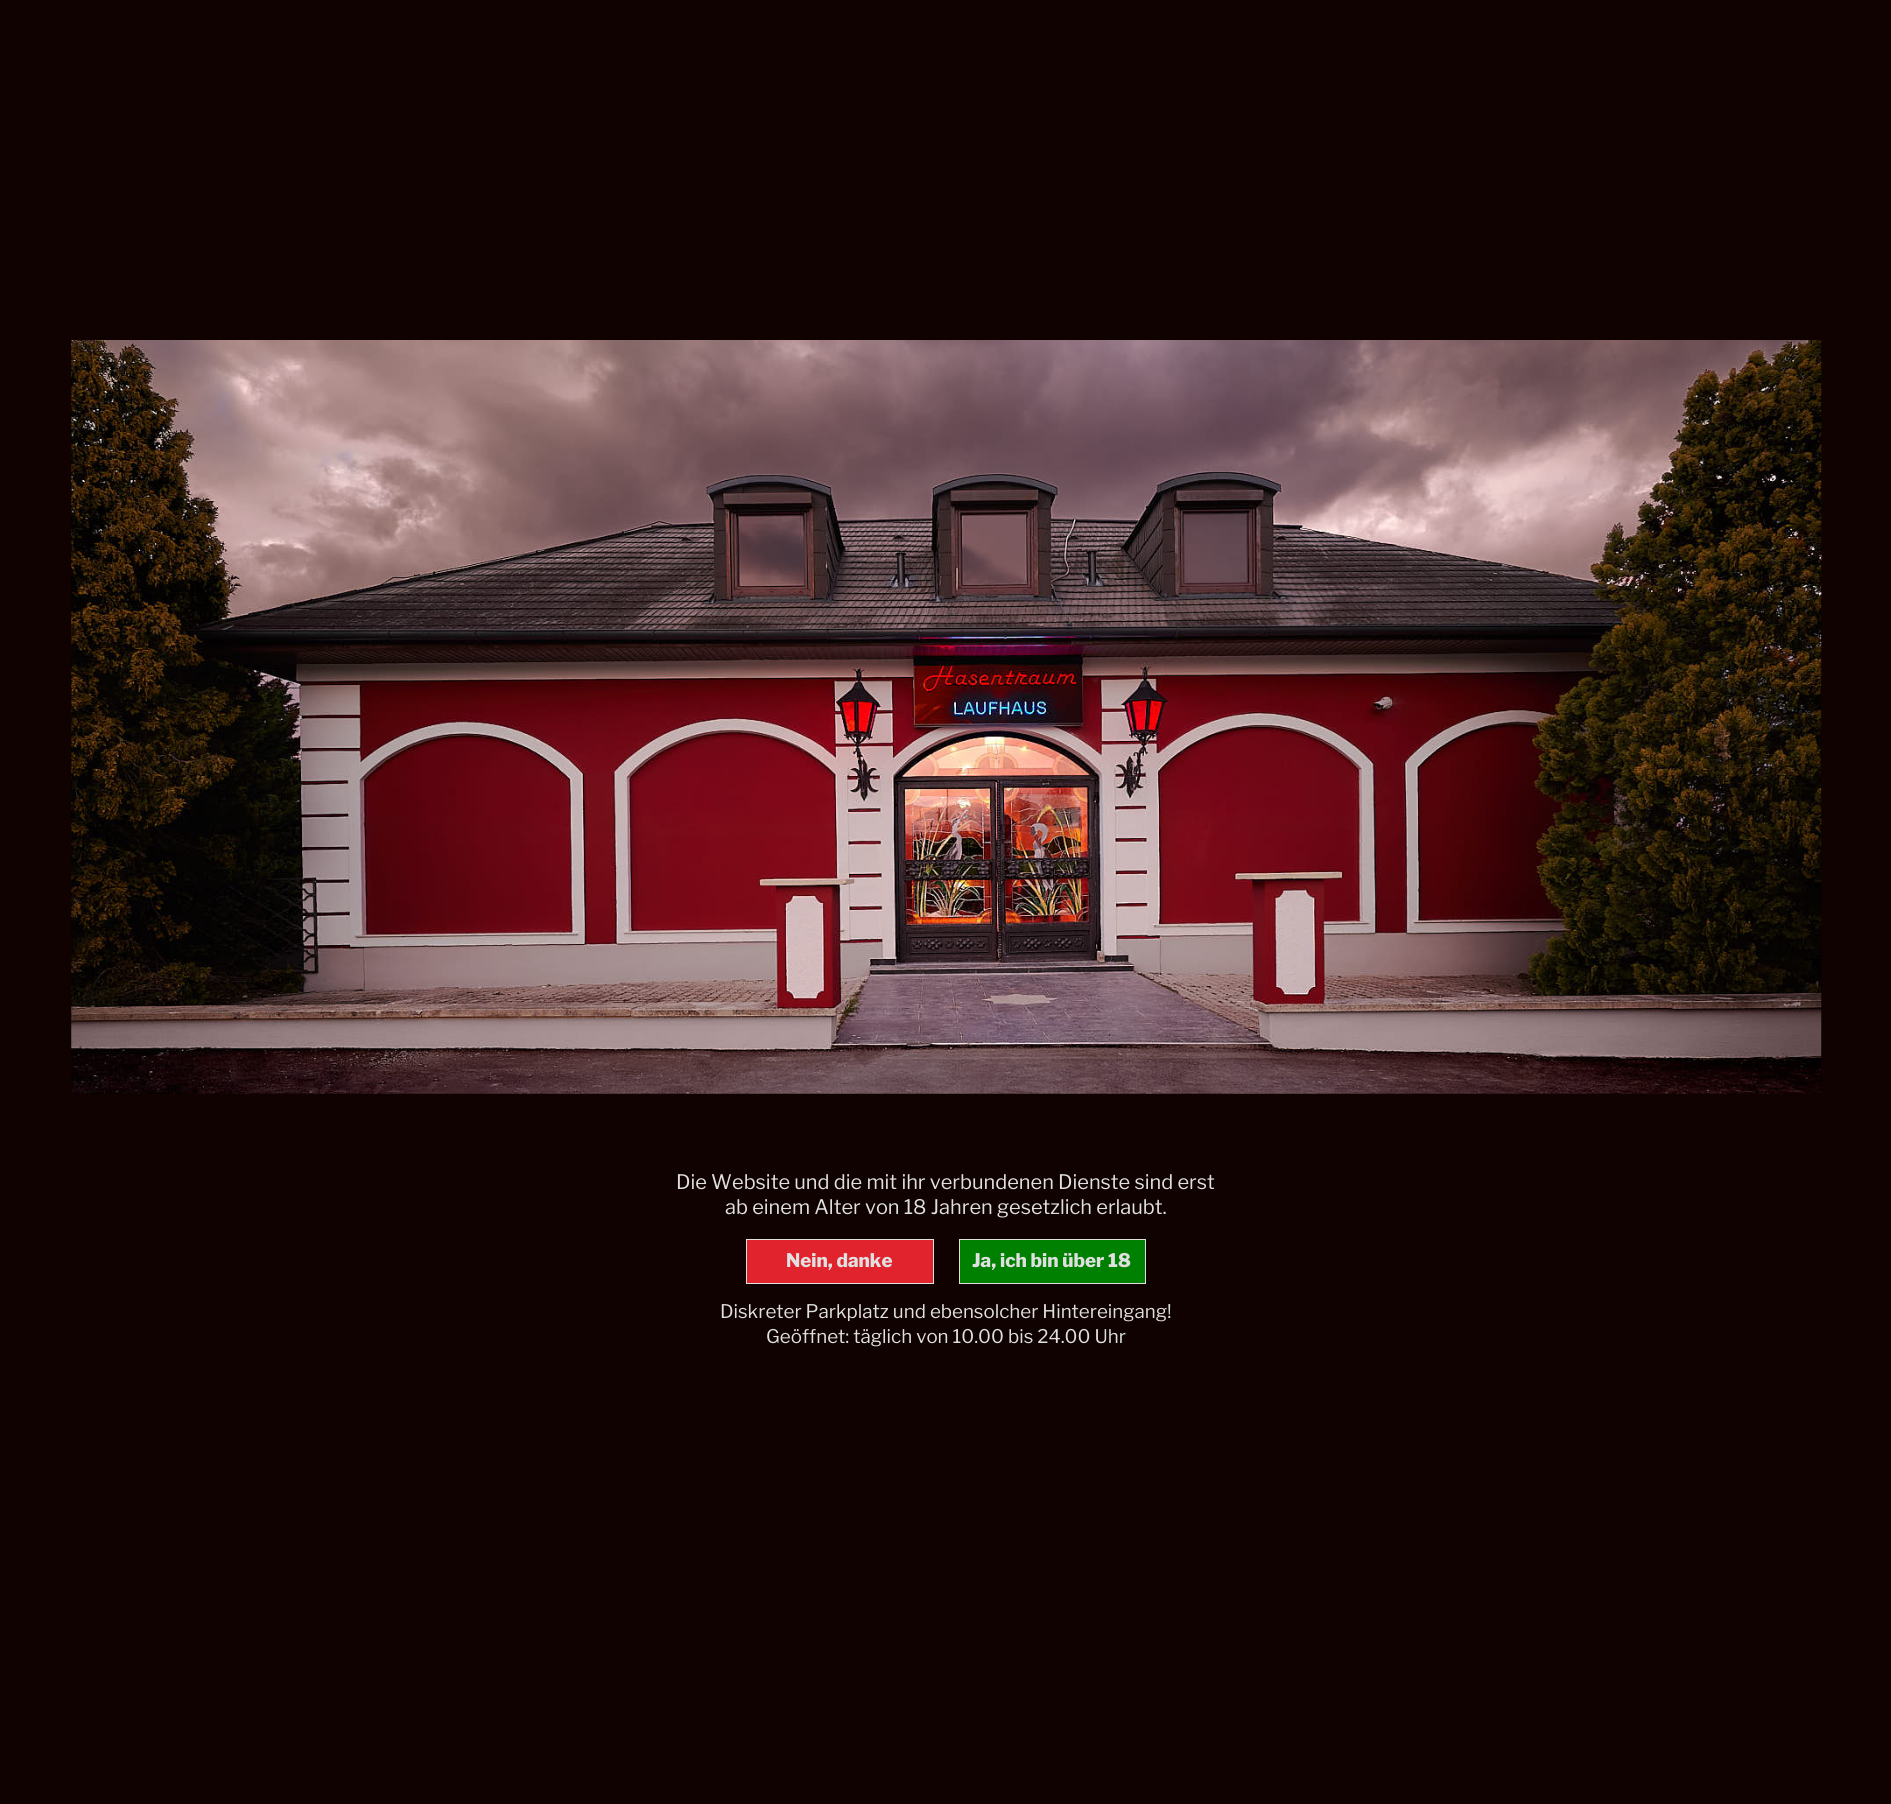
import math
import cairo


def paste(ctx, path, x, y, w, h):
	ctx.save()
	ctx.set_source_surface(cairo.ImageSurface.create_from_png(path), x, y)
	ctx.rectangle(x, y, w, h)
	ctx.fill()
	ctx.restore()

def draw(ctx):
	ctx.set_source_rgb(0.059, 0.008, 0)
	ctx.paint()
	paste(ctx, 'media/1.png', 71, 340, 1751, 754)
	ctx.select_font_face('Libre Franklin Thin')
	ctx.set_font_size(20)
	ctx.set_source_rgb(0.878, 0.878, 0.878)
	ctx.move_to(676, 1189)
	ctx.show_text('Die Website und die mit ihr verbundenen Dienste sind erst')
	ctx.move_to(725, 1214)
	ctx.show_text('ab einem Alter von 18 Jahren gesetzlich erlaubt.')
	ctx.set_source_rgb(0.882, 0.137, 0.18)
	ctx.rectangle(746.5, 1239.5, 187, 44)
	ctx.fill_preserve()
	ctx.set_source_rgb(0.878, 0.878, 0.878)
	ctx.set_line_width(1)
	ctx.stroke()
	ctx.select_font_face('Libre Franklin ExtraBold')
	ctx.set_font_size(18.75)
	ctx.move_to(786, 1267)
	ctx.show_text('Nein, danke')
	ctx.set_source_rgb(0, 0.502, 0)
	ctx.rectangle(959.5, 1239.5, 186, 44)
	ctx.fill_preserve()
	ctx.set_source_rgb(0.878, 0.878, 0.878)
	ctx.stroke()
	ctx.move_to(972, 1267)
	ctx.show_text('Ja, ich bin über 18')
	ctx.select_font_face('Libre Franklin Thin')
	ctx.move_to(720, 1318)
	ctx.show_text('Diskreter Parkplatz und ebensolcher Hintereingang!')
	ctx.move_to(766, 1343)
	ctx.show_text('Geöffnet: täglich von 10.00 bis 24.00 Uhr')


surface = cairo.ImageSurface(cairo.FORMAT_RGB24, 1891, 1804)
ctx = cairo.Context(surface)
options = cairo.FontOptions()
options.set_hint_metrics(cairo.HINT_METRICS_OFF)
options.set_hint_style(cairo.HINT_STYLE_NONE)
ctx.set_font_options(options)
ctx.set_miter_limit(4)
draw(ctx)
surface.write_to_png('image.png')
